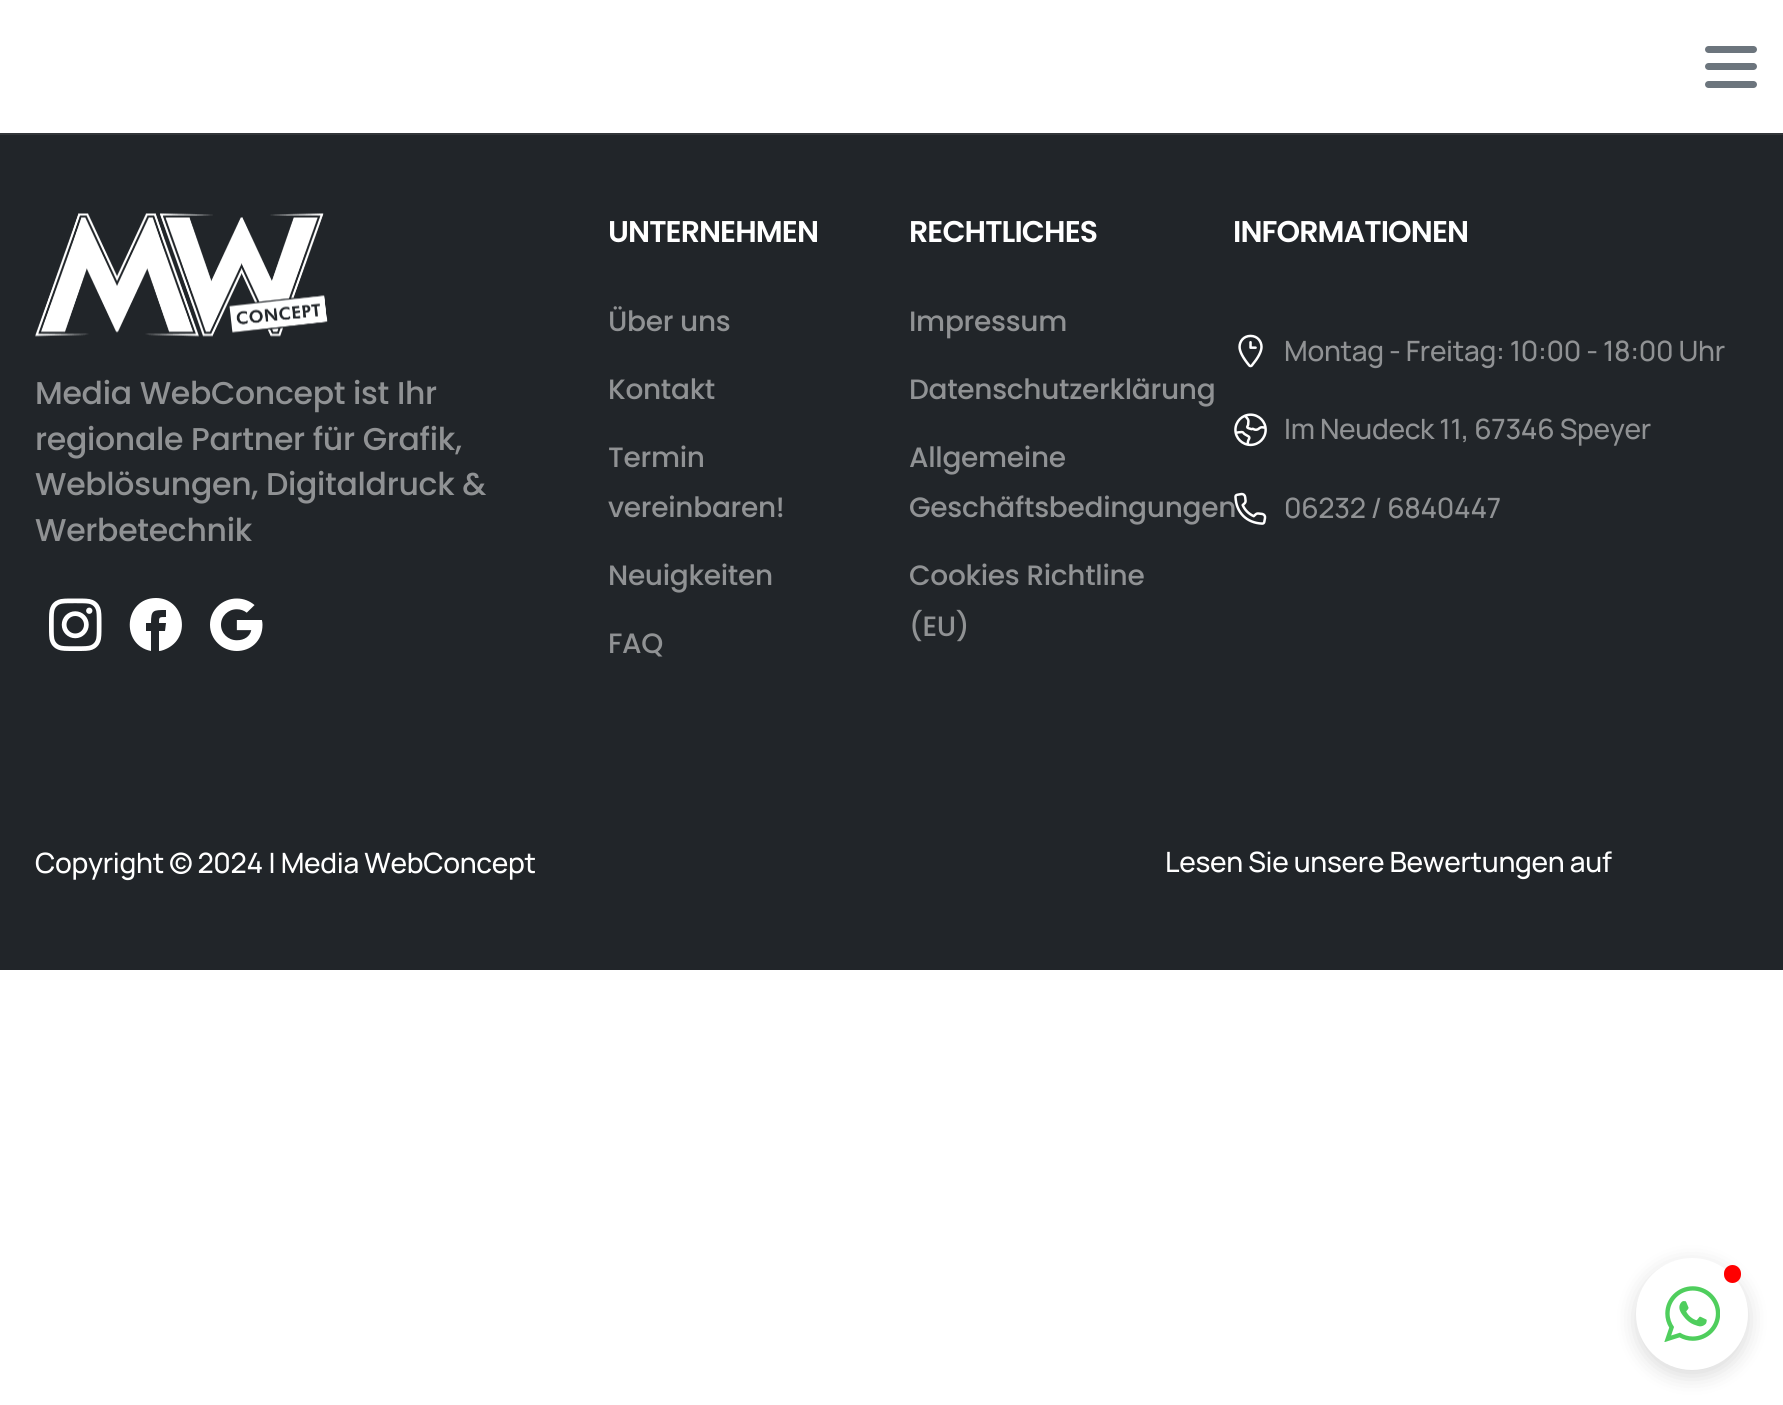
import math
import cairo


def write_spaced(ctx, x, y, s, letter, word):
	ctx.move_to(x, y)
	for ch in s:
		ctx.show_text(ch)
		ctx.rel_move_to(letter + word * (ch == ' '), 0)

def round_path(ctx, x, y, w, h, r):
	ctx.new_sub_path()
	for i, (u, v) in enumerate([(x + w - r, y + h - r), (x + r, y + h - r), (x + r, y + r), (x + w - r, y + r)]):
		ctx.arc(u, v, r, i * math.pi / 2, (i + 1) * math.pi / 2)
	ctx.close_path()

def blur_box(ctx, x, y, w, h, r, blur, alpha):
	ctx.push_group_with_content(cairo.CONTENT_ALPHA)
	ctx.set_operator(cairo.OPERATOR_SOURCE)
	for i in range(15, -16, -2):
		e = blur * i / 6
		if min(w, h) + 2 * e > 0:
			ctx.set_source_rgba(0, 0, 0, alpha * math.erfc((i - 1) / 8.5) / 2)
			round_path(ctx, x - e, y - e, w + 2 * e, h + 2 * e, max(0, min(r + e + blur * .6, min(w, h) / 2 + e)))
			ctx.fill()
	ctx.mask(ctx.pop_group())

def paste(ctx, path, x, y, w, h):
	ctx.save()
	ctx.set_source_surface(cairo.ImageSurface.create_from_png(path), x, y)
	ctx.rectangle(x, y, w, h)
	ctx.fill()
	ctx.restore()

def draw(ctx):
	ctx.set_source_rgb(1, 1, 1)
	ctx.paint()
	ctx.set_source_rgb(0.424, 0.459, 0.49)
	round_path(ctx, 1705, 46, 52, 7, 3.5)
	ctx.fill()
	round_path(ctx, 1705, 63, 52, 7, 3.5)
	ctx.fill()
	round_path(ctx, 1705, 81, 52, 7, 3.5)
	ctx.fill()
	ctx.set_source_rgb(0.129, 0.145, 0.161)
	ctx.rectangle(0, 135, 1783, 835)
	ctx.fill()
	ctx.set_source_rgb(0.2, 0.212, 0.227)
	ctx.rectangle(0, 133, 1783, 2)
	ctx.fill()
	paste(ctx, 'media/1.png', 35, 213, 293, 124)
	ctx.select_font_face('Poppins Medium')
	ctx.set_font_size(31.5)
	ctx.set_source_rgb(0.565, 0.573, 0.58)
	for x, y, s in [
		(35, 404, 'Media WebConcept ist Ihr'),
		(35, 450, 'regionale Partner für Grafik,'),
		(35, 495, 'Weblösungen, Digitaldruck &'),
		(35, 541, 'Werbetechnik'),
	]:
		write_spaced(ctx, x, y, s, -0.3, 0)
	paste(ctx, 'media/2.png', 49, 598, 53, 53)
	ctx.set_source_rgb(1, 1, 1)
	ctx.set_fill_rule(cairo.FILL_RULE_EVEN_ODD)
	ctx.new_path()
	ctx.move_to(156, 598)
	ctx.curve_to(183, 598, 192, 635, 168, 648)
	ctx.curve_to(166, 649, 162, 651, 159, 651)
	ctx.line_to(159, 631)
	ctx.line_to(165, 631)
	ctx.line_to(166, 623)
	ctx.line_to(159, 623)
	ctx.curve_to(159, 617, 159, 617, 166, 617)
	ctx.line_to(166, 610)
	ctx.curve_to(153, 610, 151, 610, 151, 623)
	ctx.line_to(146, 623)
	ctx.line_to(146, 631)
	ctx.line_to(151, 631)
	ctx.line_to(151, 651)
	ctx.curve_to(120, 645, 124, 598, 156, 598)
	ctx.close_path()
	ctx.fill()
	paste(ctx, 'media/3.png', 210, 598, 53, 53)
	ctx.select_font_face('Poppins SemiBold')
	ctx.set_font_size(30)
	write_spaced(ctx, 608, 242, 'UNTERNEHMEN', -0.9, 0)
	ctx.select_font_face('Poppins Medium')
	ctx.set_font_size(28)
	ctx.set_source_rgb(0.565, 0.573, 0.58)
	for x, y, s in [
		(608, 331, 'Über uns'),
		(608, 399, 'Kontakt'),
		(608, 467, 'Termin'),
		(608, 517, 'vereinbaren!'),
		(608, 585, 'Neuigkeiten'),
		(608, 653, 'FAQ'),
	]:
		write_spaced(ctx, x, y, s, -0.3, 0)
	ctx.select_font_face('Poppins SemiBold')
	ctx.set_font_size(30)
	ctx.set_source_rgb(1, 1, 1)
	write_spaced(ctx, 909, 242, 'RECHTLICHES', -0.9, 0)
	ctx.select_font_face('Poppins Medium')
	ctx.set_font_size(28)
	ctx.set_source_rgb(0.565, 0.573, 0.58)
	for x, y, s in [
		(909, 331, 'Impressum'),
		(909, 399, 'Datenschutzerklärung'),
		(909, 467, 'Allgemeine'),
		(909, 517, 'Geschäftsbedingungen'),
		(909, 585, 'Cookies Richtline'),
		(909, 636, '(EU)'),
	]:
		write_spaced(ctx, x, y, s, -0.3, 0)
	ctx.select_font_face('Poppins SemiBold')
	ctx.set_font_size(30)
	ctx.set_source_rgb(1, 1, 1)
	write_spaced(ctx, 1233, 242, 'INFORMATIONEN', -0.9, 0)
	paste(ctx, 'media/4.png', 1238, 334, 25, 34)
	ctx.select_font_face('Manrope Medium')
	ctx.set_font_size(28)
	ctx.set_source_rgb(0.565, 0.573, 0.58)
	write_spaced(ctx, 1284, 361, 'Montag - Freitag: 10:00 - 18:00 Uhr', -0.3, 0)
	paste(ctx, 'media/5.png', 1234, 413, 33, 34)
	write_spaced(ctx, 1284, 439, 'Im Neudeck 11, 67346 Speyer', -0.3, 0)
	paste(ctx, 'media/6.png', 1234, 492, 33, 33)
	write_spaced(ctx, 1284, 518, '06232 / 6840447', -0.3, 0)
	ctx.set_source_rgb(1, 1, 1)
	write_spaced(ctx, 35, 873, 'Copyright © 2024 | Media WebConcept', -0.3, 0)
	write_spaced(ctx, 1165, 872, 'Lesen Sie unsere Bewertungen auf', -0.3, 0)
	ctx.set_source_rgb(0, 0, 0)
	blur_box(ctx, 1636, 1264, 112, 112, 56, 10.5, 0.15)
	ctx.set_source_rgb(1, 1, 1)
	ctx.arc(1692, 1314, 56, 0, 2 * math.pi)
	ctx.fill()
	ctx.set_source_rgb(1, 0, 0)
	round_path(ctx, 1724, 1265, 17, 18, 8.5)
	ctx.fill()
	paste(ctx, 'media/7.png', 1664, 1286, 56, 56)


surface = cairo.ImageSurface(cairo.FORMAT_RGB24, 1783, 1405)
ctx = cairo.Context(surface)
options = cairo.FontOptions()
options.set_hint_metrics(cairo.HINT_METRICS_OFF)
options.set_hint_style(cairo.HINT_STYLE_NONE)
ctx.set_font_options(options)
ctx.set_miter_limit(4)
draw(ctx)
surface.write_to_png('image.png')
